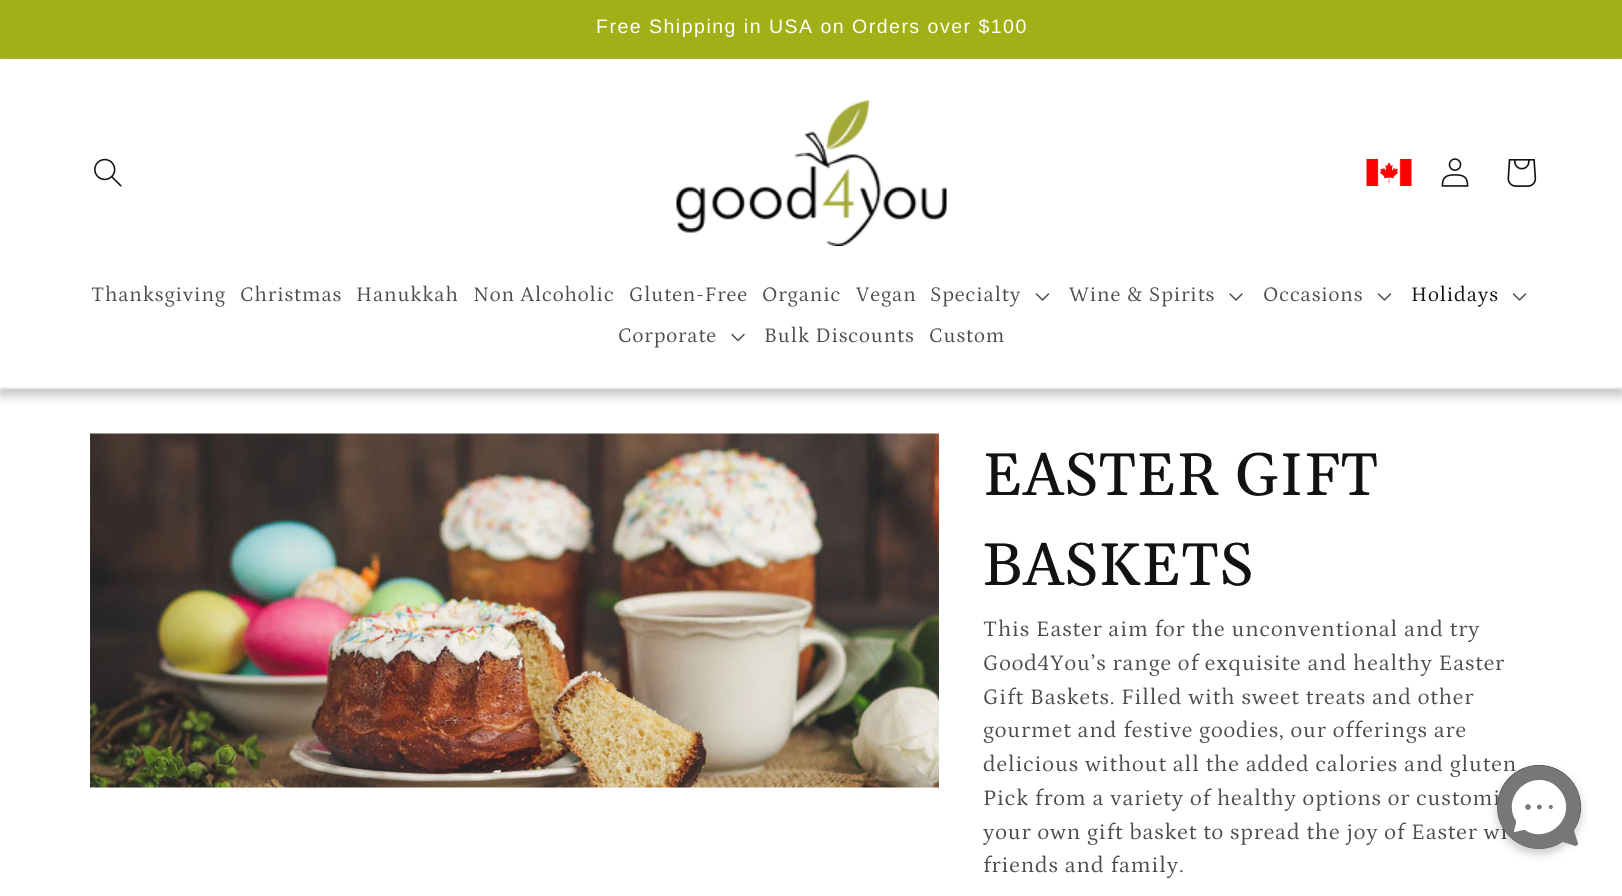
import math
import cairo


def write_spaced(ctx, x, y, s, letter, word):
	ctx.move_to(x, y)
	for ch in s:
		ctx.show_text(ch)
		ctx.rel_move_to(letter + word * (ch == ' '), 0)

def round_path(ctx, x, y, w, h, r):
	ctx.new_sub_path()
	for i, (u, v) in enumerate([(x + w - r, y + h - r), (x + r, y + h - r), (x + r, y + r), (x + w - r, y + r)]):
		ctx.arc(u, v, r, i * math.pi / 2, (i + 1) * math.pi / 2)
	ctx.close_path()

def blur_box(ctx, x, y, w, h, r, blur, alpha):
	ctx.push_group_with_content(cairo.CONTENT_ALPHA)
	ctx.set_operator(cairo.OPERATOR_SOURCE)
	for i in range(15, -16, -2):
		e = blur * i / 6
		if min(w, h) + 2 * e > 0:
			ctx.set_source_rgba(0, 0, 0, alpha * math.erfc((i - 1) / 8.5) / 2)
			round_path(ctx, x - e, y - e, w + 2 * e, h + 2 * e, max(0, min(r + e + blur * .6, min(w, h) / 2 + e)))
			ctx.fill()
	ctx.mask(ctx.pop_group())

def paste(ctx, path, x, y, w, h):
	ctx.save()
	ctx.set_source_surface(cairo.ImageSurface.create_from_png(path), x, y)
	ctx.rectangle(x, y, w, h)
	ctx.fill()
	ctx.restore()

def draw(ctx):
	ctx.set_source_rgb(1, 1, 1)
	ctx.paint()
	ctx.set_source_rgb(0.635, 0.69, 0.09)
	ctx.rectangle(0, 0, 1622, 57)
	ctx.fill()
	ctx.set_source_rgb(0.663, 0.714, 0.165)
	ctx.rectangle(0, 57, 1622, 2)
	ctx.fill()
	ctx.select_font_face('Liberation Sans')
	ctx.set_font_size(19.5)
	ctx.set_source_rgb(1, 1, 1)
	write_spaced(ctx, 596, 33, 'Free Shipping in USA on Orders over $100', 1.5, 0)
	ctx.set_source_rgb(0, 0, 0)
	blur_box(ctx, 0, 65, 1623, 330, 0, 6, 0.25)
	ctx.set_source_rgb(1, 1, 1)
	ctx.rectangle(0, 59, 1622, 328)
	ctx.fill()
	ctx.set_source_rgb(0.925, 0.925, 0.925)
	ctx.rectangle(0, 387, 1622, 2)
	ctx.fill()
	paste(ctx, 'media/1.png', 94, 158, 28, 29)
	paste(ctx, 'media/2.png', 676, 100, 271, 146)
	paste(ctx, 'media/3.png', 1366, 159, 46, 27)
	paste(ctx, 'media/4.png', 1441, 158, 28, 29)
	paste(ctx, 'media/5.png', 1507, 159, 30, 28)
	ctx.select_font_face('Petrona')
	ctx.set_font_size(21)
	ctx.set_source_rgb(0.302, 0.302, 0.302)
	for x, y, s in [
		(91, 301, 'Thanksgiving'),
		(240, 301, 'Christmas'),
		(356, 301, 'Hanukkah'),
		(473, 301, 'Non Alcoholic'),
		(629, 301, 'Gluten-Free'),
		(762, 301, 'Organic'),
		(856, 301, 'Vegan'),
		(930, 301, 'Specialty'),
	]:
		write_spaced(ctx, x, y, s, 0.9, 0)
	paste(ctx, 'media/6.png', 1035, 293, 15, 8)
	write_spaced(ctx, 1069, 301, 'Wine & Spirits', 0.9, 0)
	paste(ctx, 'media/7.png', 1229, 293, 14, 8)
	write_spaced(ctx, 1263, 301, 'Occasions', 0.9, 0)
	paste(ctx, 'media/6.png', 1377, 293, 15, 8)
	ctx.set_source_rgb(0.071, 0.071, 0.071)
	write_spaced(ctx, 1411, 301, 'Holidays', 0.9, 0)
	paste(ctx, 'media/6.png', 1512, 293, 15, 8)
	ctx.set_source_rgb(0.302, 0.302, 0.302)
	write_spaced(ctx, 618, 342, 'Corporate', 0.9, 0)
	paste(ctx, 'media/8.png', 731, 333, 14, 9)
	write_spaced(ctx, 764, 342, 'Bulk Discounts', 0.9, 0)
	write_spaced(ctx, 929, 342, 'Custom', 0.9, 0)
	paste(ctx, 'media/9.png', 90, 433, 849, 355)
	ctx.select_font_face('Gelasio')
	ctx.set_font_size(60)
	ctx.set_source_rgb(0.071, 0.071, 0.071)
	write_spaced(ctx, 983, 495, 'EASTER GIFT', 0.9, 0)
	write_spaced(ctx, 983, 585, 'BASKETS', 0.9, 0)
	ctx.select_font_face('Petrona')
	ctx.set_font_size(22.5)
	ctx.set_source_rgb(0.302, 0.302, 0.302)
	for x, y, s in [
		(983, 636, 'This Easter aim for the unconventional and try'),
		(983, 670, 'Good4You’s range of exquisite and healthy Easter'),
		(983, 704, 'Gift Baskets. Filled with sweet treats and other'),
		(983, 737, 'gourmet and festive goodies, our offerings are'),
		(983, 771, 'delicious without all the added calories and gluten'),
		(983, 805, 'Pick from a variety of healthy options or customi'),
		(983, 839, 'your own gift basket to spread the joy of Easter wi'),
		(983, 872, 'friends and family.'),
	]:
		write_spaced(ctx, x, y, s, 0.9, 0)
	ctx.set_source_rgb(0, 0, 0)
	blur_box(ctx, 1497, 770, 84, 84, 42, 4.5, 0.2)
	gradient = cairo.LinearGradient(1497, 849, 1581, 765)
	gradient.add_color_stop_rgba(0, 0.467, 0.467, 0.467, 1)
	gradient.add_color_stop_rgba(1, 0.133, 0.133, 0.133, 1)
	ctx.set_source(gradient)
	ctx.arc(1539, 807, 42, 0, 2 * math.pi)
	ctx.fill()
	ctx.set_source_rgb(0.467, 0.467, 0.467)
	ctx.new_path()
	ctx.move_to(1569, 778)
	ctx.curve_to(1552, 761, 1525, 761, 1509, 779)
	ctx.curve_to(1494, 795, 1494, 820, 1510, 836)
	ctx.curve_to(1523, 850, 1544, 852, 1560, 843)
	ctx.curve_to(1561, 842, 1562, 842, 1563, 842)
	ctx.line_to(1575, 846)
	ctx.curve_to(1577, 846, 1578, 845, 1578, 843)
	ctx.line_to(1574, 831)
	ctx.curve_to(1574, 830, 1574, 829, 1575, 828)
	ctx.curve_to(1584, 812, 1582, 791, 1569, 778)
	ctx.close_path()
	ctx.fill()
	ctx.set_source_rgb(1, 1, 1)
	ctx.new_path()
	ctx.move_to(1558, 826)
	ctx.curve_to(1569, 815, 1569, 798, 1557, 787)
	ctx.curve_to(1547, 777, 1530, 778, 1520, 788)
	ctx.curve_to(1511, 797, 1509, 810, 1516, 821)
	ctx.line_to(1516, 823)
	ctx.line_to(1514, 831)
	ctx.curve_to(1514, 831, 1514, 832, 1515, 832)
	ctx.line_to(1523, 830)
	ctx.line_to(1525, 830)
	ctx.curve_to(1535, 837, 1549, 835, 1558, 826)
	ctx.close_path()
	ctx.fill()
	paste(ctx, 'media/10.png', 1525, 804, 28, 6)


surface = cairo.ImageSurface(cairo.FORMAT_RGB24, 1622, 896)
ctx = cairo.Context(surface)
options = cairo.FontOptions()
options.set_hint_metrics(cairo.HINT_METRICS_OFF)
options.set_hint_style(cairo.HINT_STYLE_NONE)
ctx.set_font_options(options)
ctx.set_miter_limit(4)
draw(ctx)
surface.write_to_png('image.png')
